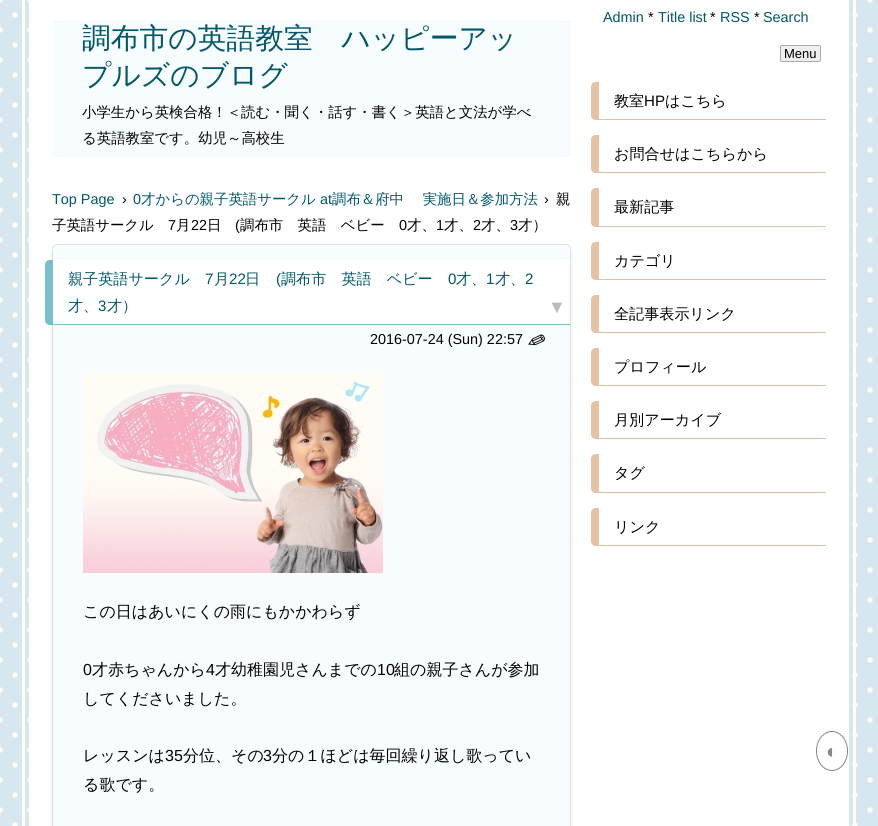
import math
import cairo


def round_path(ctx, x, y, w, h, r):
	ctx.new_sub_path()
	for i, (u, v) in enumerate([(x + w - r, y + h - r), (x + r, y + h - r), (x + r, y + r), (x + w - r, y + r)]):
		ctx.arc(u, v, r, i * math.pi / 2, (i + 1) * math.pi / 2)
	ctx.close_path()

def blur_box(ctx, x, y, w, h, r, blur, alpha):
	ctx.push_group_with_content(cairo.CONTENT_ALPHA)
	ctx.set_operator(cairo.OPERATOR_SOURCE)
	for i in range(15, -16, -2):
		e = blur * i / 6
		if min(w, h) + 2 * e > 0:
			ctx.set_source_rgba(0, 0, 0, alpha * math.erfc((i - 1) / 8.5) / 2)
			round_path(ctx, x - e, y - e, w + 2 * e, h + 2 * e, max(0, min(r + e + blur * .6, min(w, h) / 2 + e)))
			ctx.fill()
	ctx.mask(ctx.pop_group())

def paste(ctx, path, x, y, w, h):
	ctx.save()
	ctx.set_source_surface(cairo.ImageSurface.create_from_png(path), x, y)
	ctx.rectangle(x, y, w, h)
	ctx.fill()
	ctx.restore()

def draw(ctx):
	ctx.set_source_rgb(0.843, 0.906, 0.937)
	ctx.paint()
	ctx.new_path()
	ctx.move_to(0, 0)
	ctx.line_to(870.2, 0)
	ctx.set_source_rgb(1, 1, 1)
	ctx.set_line_width(5.3)
	ctx.set_line_cap(cairo.LINE_CAP_ROUND)
	ctx.set_dash([0, 30])
	ctx.stroke()
	ctx.new_path()
	ctx.move_to(0, 30)
	ctx.line_to(870.2, 30)
	ctx.stroke()
	ctx.new_path()
	ctx.move_to(0, 60)
	ctx.line_to(870.2, 60)
	ctx.stroke()
	ctx.new_path()
	ctx.move_to(0, 90)
	ctx.line_to(870.2, 90)
	ctx.stroke()
	ctx.new_path()
	ctx.move_to(0, 120)
	ctx.line_to(870.2, 120)
	ctx.stroke()
	ctx.new_path()
	ctx.move_to(0, 150)
	ctx.line_to(870.2, 150)
	ctx.stroke()
	ctx.new_path()
	ctx.move_to(0, 180)
	ctx.line_to(870.2, 180)
	ctx.stroke()
	ctx.new_path()
	ctx.move_to(0, 210)
	ctx.line_to(870.2, 210)
	ctx.stroke()
	ctx.new_path()
	ctx.move_to(0, 240)
	ctx.line_to(870.2, 240)
	ctx.stroke()
	ctx.new_path()
	ctx.move_to(0, 270)
	ctx.line_to(870.2, 270)
	ctx.stroke()
	ctx.new_path()
	ctx.move_to(0, 300)
	ctx.line_to(870.2, 300)
	ctx.stroke()
	ctx.new_path()
	ctx.move_to(0, 330)
	ctx.line_to(870.2, 330)
	ctx.stroke()
	ctx.new_path()
	ctx.move_to(0, 360)
	ctx.line_to(870.2, 360)
	ctx.stroke()
	ctx.new_path()
	ctx.move_to(0, 390)
	ctx.line_to(870.2, 390)
	ctx.stroke()
	ctx.new_path()
	ctx.move_to(0, 420)
	ctx.line_to(870.2, 420)
	ctx.stroke()
	ctx.new_path()
	ctx.move_to(0, 450)
	ctx.line_to(870.2, 450)
	ctx.stroke()
	ctx.new_path()
	ctx.move_to(0, 480)
	ctx.line_to(870.2, 480)
	ctx.stroke()
	ctx.new_path()
	ctx.move_to(0, 510)
	ctx.line_to(870.2, 510)
	ctx.stroke()
	ctx.new_path()
	ctx.move_to(0, 540)
	ctx.line_to(870.2, 540)
	ctx.stroke()
	ctx.new_path()
	ctx.move_to(0, 570)
	ctx.line_to(870.2, 570)
	ctx.stroke()
	ctx.new_path()
	ctx.move_to(0, 600)
	ctx.line_to(870.2, 600)
	ctx.stroke()
	ctx.new_path()
	ctx.move_to(0, 630)
	ctx.line_to(870.2, 630)
	ctx.stroke()
	ctx.new_path()
	ctx.move_to(0, 660)
	ctx.line_to(870.2, 660)
	ctx.stroke()
	ctx.new_path()
	ctx.move_to(0, 690)
	ctx.line_to(870.2, 690)
	ctx.stroke()
	ctx.new_path()
	ctx.move_to(0, 720)
	ctx.line_to(870.2, 720)
	ctx.stroke()
	ctx.new_path()
	ctx.move_to(0, 750)
	ctx.line_to(870.2, 750)
	ctx.stroke()
	ctx.new_path()
	ctx.move_to(0, 780)
	ctx.line_to(870.2, 780)
	ctx.stroke()
	ctx.new_path()
	ctx.move_to(0, 810)
	ctx.line_to(870.2, 810)
	ctx.stroke()
	ctx.new_path()
	ctx.move_to(15, 15)
	ctx.line_to(15, 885.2)
	ctx.stroke()
	ctx.new_path()
	ctx.move_to(855, 15)
	ctx.line_to(855, 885.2)
	ctx.stroke()
	ctx.rectangle(29, 0, 820, 826)
	ctx.rectangle(853, 0, 3, 826)
	ctx.rectangle(22, 0, 3, 826)
	ctx.fill()
	ctx.set_source_rgb(0.965, 0.988, 1)
	ctx.rectangle(52, 20, 519, 137)
	ctx.fill()
	ctx.select_font_face('WenQuanYi Zen Hei Medium')
	ctx.set_font_size(28.75)
	ctx.set_source_rgb(0, 0.345, 0.416)
	ctx.move_to(82, 48)
	ctx.show_text('調布市の英語教室　ハッピーアッ')
	ctx.move_to(82, 85)
	ctx.show_text('プルズのブログ')
	ctx.set_font_size(14.4)
	ctx.set_source_rgb(0, 0, 0)
	ctx.move_to(82, 117)
	ctx.show_text('小学生から英検合格！＜読む・聞く・話す・書く＞英語と文法が学べ')
	ctx.move_to(82, 143)
	ctx.show_text('る英語教室です。幼児～高校生')
	ctx.select_font_face('Liberation Sans')
	ctx.set_source_rgb(0, 0.345, 0.416)
	ctx.move_to(52, 204)
	ctx.show_text('Top Page')
	ctx.set_source_rgb(0, 0, 0)
	ctx.move_to(122, 204)
	ctx.show_text('›')
	ctx.set_source_rgb(0, 0.345, 0.416)
	ctx.move_to(133, 204)
	ctx.show_text('0')
	ctx.select_font_face('WenQuanYi Zen Hei Medium')
	ctx.move_to(141, 204)
	ctx.show_text('才からの親子英語サークル')
	ctx.select_font_face('Liberation Sans')
	ctx.move_to(320, 204)
	ctx.show_text('at')
	ctx.select_font_face('WenQuanYi Zen Hei Medium')
	ctx.move_to(332, 204)
	ctx.show_text('調布＆府中　 実施日＆参加方法')
	ctx.select_font_face('Liberation Sans')
	ctx.set_source_rgb(0, 0, 0)
	ctx.move_to(544, 204)
	ctx.show_text('›')
	ctx.select_font_face('WenQuanYi Zen Hei Medium')
	ctx.move_to(556, 204)
	ctx.show_text('親')
	ctx.move_to(52, 230)
	ctx.show_text('子英語サークル')
	ctx.select_font_face('Liberation Sans')
	ctx.move_to(168, 230)
	ctx.show_text('7')
	ctx.select_font_face('WenQuanYi Zen Hei Medium')
	ctx.move_to(176, 230)
	ctx.show_text('月')
	ctx.select_font_face('Liberation Sans')
	ctx.move_to(191, 230)
	ctx.show_text('22')
	ctx.select_font_face('WenQuanYi Zen Hei Medium')
	ctx.move_to(207, 230)
	ctx.show_text('日')
	ctx.select_font_face('Liberation Sans')
	ctx.move_to(235, 230)
	ctx.show_text('(')
	ctx.select_font_face('WenQuanYi Zen Hei Medium')
	ctx.move_to(240, 230)
	ctx.show_text('調布市　英語　ベビー')
	ctx.select_font_face('Liberation Sans')
	ctx.move_to(399, 230)
	ctx.show_text('0')
	ctx.select_font_face('WenQuanYi Zen Hei Medium')
	ctx.move_to(407, 230)
	ctx.show_text('才、')
	ctx.select_font_face('Liberation Sans')
	ctx.move_to(436, 230)
	ctx.show_text('1')
	ctx.select_font_face('WenQuanYi Zen Hei Medium')
	ctx.move_to(444, 230)
	ctx.show_text('才、')
	ctx.select_font_face('Liberation Sans')
	ctx.move_to(473, 230)
	ctx.show_text('2')
	ctx.select_font_face('WenQuanYi Zen Hei Medium')
	ctx.move_to(481, 230)
	ctx.show_text('才、')
	ctx.select_font_face('Liberation Sans')
	ctx.move_to(510, 230)
	ctx.show_text('3')
	ctx.select_font_face('WenQuanYi Zen Hei Medium')
	ctx.move_to(518, 230)
	ctx.show_text('才）')
	ctx.set_source_rgb(0, 0, 0)
	blur_box(ctx, 55, 252, 513, 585, 2, 3, 0.3)
	ctx.set_source_rgb(0.965, 0.988, 1)
	round_path(ctx, 52, 244, 519, 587, 5)
	ctx.fill()
	round_path(ctx, 52.5, 244.5, 518, 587, 4.5)
	ctx.set_source_rgba(0, 0, 0, 0.1)
	ctx.set_line_width(1)
	ctx.set_line_cap(cairo.LINE_CAP_BUTT)
	ctx.set_dash([])
	ctx.stroke()
	ctx.set_source_rgb(1, 1, 1)
	ctx.new_path()
	ctx.move_to(50, 260)
	ctx.line_to(570, 260)
	ctx.line_to(570, 325)
	ctx.line_to(50, 325)
	ctx.curve_to(47, 325, 45, 323, 45, 320)
	ctx.line_to(45, 265)
	ctx.curve_to(45, 262, 47, 260, 50, 260)
	ctx.close_path()
	ctx.fill()
	ctx.set_source_rgb(0.467, 0.753, 0.78)
	ctx.set_fill_rule(cairo.FILL_RULE_EVEN_ODD)
	ctx.new_path()
	ctx.move_to(50, 260)
	ctx.line_to(570, 260)
	ctx.line_to(570, 325)
	ctx.line_to(50, 325)
	ctx.curve_to(47, 325, 45, 323, 45, 320)
	ctx.line_to(45, 265)
	ctx.curve_to(45, 262, 47, 260, 50, 260)
	ctx.close_path()
	ctx.move_to(53, 260)
	ctx.line_to(570, 260)
	ctx.line_to(570, 324)
	ctx.line_to(53, 324)
	ctx.close_path()
	ctx.fill()
	ctx.set_font_size(15.1)
	ctx.set_source_rgb(0, 0.345, 0.416)
	ctx.move_to(68, 284)
	ctx.show_text('親子英語サークル')
	ctx.select_font_face('Liberation Sans')
	ctx.move_to(205, 284)
	ctx.show_text('7')
	ctx.select_font_face('WenQuanYi Zen Hei Medium')
	ctx.move_to(214, 284)
	ctx.show_text('月')
	ctx.select_font_face('Liberation Sans')
	ctx.move_to(229, 284)
	ctx.show_text('22')
	ctx.select_font_face('WenQuanYi Zen Hei Medium')
	ctx.move_to(245, 284)
	ctx.show_text('日')
	ctx.select_font_face('Liberation Sans')
	ctx.move_to(276, 284)
	ctx.show_text('(')
	ctx.select_font_face('WenQuanYi Zen Hei Medium')
	ctx.move_to(281, 284)
	ctx.show_text('調布市　英語　ベビー')
	ctx.select_font_face('Liberation Sans')
	ctx.move_to(448, 284)
	ctx.show_text('0')
	ctx.select_font_face('WenQuanYi Zen Hei Medium')
	ctx.move_to(456, 284)
	ctx.show_text('才、')
	ctx.select_font_face('Liberation Sans')
	ctx.move_to(486, 284)
	ctx.show_text('1')
	ctx.select_font_face('WenQuanYi Zen Hei Medium')
	ctx.move_to(495, 284)
	ctx.show_text('才、')
	ctx.select_font_face('Liberation Sans')
	ctx.move_to(525, 284)
	ctx.show_text('2')
	ctx.select_font_face('WenQuanYi Zen Hei Medium')
	ctx.move_to(68, 311)
	ctx.show_text('才、')
	ctx.select_font_face('Liberation Sans')
	ctx.move_to(98, 311)
	ctx.show_text('3')
	ctx.select_font_face('WenQuanYi Zen Hei Medium')
	ctx.move_to(107, 311)
	ctx.show_text('才）')
	ctx.select_font_face('Liberation Sans')
	ctx.set_font_size(18)
	ctx.set_source_rgb(0.733, 0.733, 0.733)
	ctx.move_to(548, 313)
	ctx.show_text('▼')
	ctx.set_font_size(14.4)
	ctx.set_source_rgb(0, 0, 0)
	ctx.move_to(370, 344)
	ctx.show_text('2016-07-24 (Sun) 22:57')
	ctx.select_font_face('DejaVu Sans')
	ctx.set_font_size(22)
	ctx.save()
	ctx.translate(532, 329)
	ctx.rotate(110 * math.pi / 180)
	ctx.move_to(0, 0)
	ctx.show_text('✎')
	ctx.restore()
	paste(ctx, 'media/1.png', 83, 373, 300, 200)
	ctx.select_font_face('WenQuanYi Zen Hei Medium')
	ctx.set_font_size(16)
	ctx.move_to(83, 617)
	ctx.show_text('この日はあいにくの雨にもかかわらず')
	ctx.select_font_face('Liberation Sans')
	ctx.move_to(83, 675)
	ctx.show_text('0')
	ctx.select_font_face('WenQuanYi Zen Hei Medium')
	ctx.move_to(92, 675)
	ctx.show_text('才赤ちゃんから')
	ctx.select_font_face('Liberation Sans')
	ctx.move_to(206, 675)
	ctx.show_text('4')
	ctx.select_font_face('WenQuanYi Zen Hei Medium')
	ctx.move_to(215, 675)
	ctx.show_text('才幼稚園児さんまでの')
	ctx.select_font_face('Liberation Sans')
	ctx.move_to(377, 675)
	ctx.show_text('10')
	ctx.select_font_face('WenQuanYi Zen Hei Medium')
	for x, y, s in [
		(394, 675, '組の親子さんが参加'),
		(83, 704, 'してくださいました。'),
		(83, 761, 'レッスンは'),
	]:
		ctx.move_to(x, y)
		ctx.show_text(s)
	ctx.select_font_face('Liberation Sans')
	ctx.move_to(165, 761)
	ctx.show_text('35')
	ctx.select_font_face('WenQuanYi Zen Hei Medium')
	ctx.move_to(183, 761)
	ctx.show_text('分位、その')
	ctx.select_font_face('Liberation Sans')
	ctx.move_to(263, 761)
	ctx.show_text('3')
	ctx.select_font_face('WenQuanYi Zen Hei Medium')
	ctx.move_to(272, 761)
	ctx.show_text('分の１ほどは毎回繰り返し歌ってい')
	ctx.move_to(83, 790)
	ctx.show_text('る歌です。')
	ctx.select_font_face('Liberation Sans')
	ctx.set_font_size(14.4)
	ctx.set_source_rgb(0, 0.345, 0.416)
	ctx.move_to(603, 22)
	ctx.show_text('Admin')
	ctx.set_source_rgb(0, 0, 0)
	ctx.move_to(648, 22)
	ctx.show_text('*')
	ctx.set_source_rgb(0, 0.345, 0.416)
	ctx.move_to(658, 22)
	ctx.show_text('Title list')
	ctx.set_source_rgb(0, 0, 0)
	ctx.move_to(710, 22)
	ctx.show_text('*')
	ctx.set_source_rgb(0, 0.345, 0.416)
	ctx.move_to(720, 22)
	ctx.show_text('RSS')
	ctx.set_source_rgb(0, 0, 0)
	ctx.move_to(754, 22)
	ctx.show_text('*')
	ctx.set_source_rgb(0, 0.345, 0.416)
	ctx.move_to(763, 22)
	ctx.show_text('Search')
	ctx.set_source_rgb(0.937, 0.937, 0.937)
	round_path(ctx, 780.5, 45.5, 40, 16, 1.5)
	ctx.fill_preserve()
	ctx.set_source_rgb(0.667, 0.667, 0.667)
	ctx.stroke()
	ctx.set_font_size(13)
	ctx.set_source_rgb(0, 0, 0)
	ctx.move_to(784, 58)
	ctx.show_text('Menu')
	ctx.set_source_rgb(0.91, 0.757, 0.635)
	ctx.new_path()
	ctx.move_to(596, 82)
	ctx.line_to(826, 82)
	ctx.line_to(826, 120)
	ctx.line_to(596, 120)
	ctx.curve_to(593, 120, 591, 118, 591, 115)
	ctx.line_to(591, 87)
	ctx.curve_to(591, 84, 593, 82, 596, 82)
	ctx.close_path()
	ctx.move_to(599, 82)
	ctx.line_to(826, 82)
	ctx.line_to(826, 119)
	ctx.line_to(599, 119)
	ctx.close_path()
	ctx.fill()
	ctx.select_font_face('WenQuanYi Zen Hei Medium')
	ctx.set_font_size(15.1)
	ctx.set_source_rgb(0, 0, 0)
	ctx.move_to(614, 106)
	ctx.show_text('教室')
	ctx.select_font_face('Liberation Sans')
	ctx.move_to(644, 106)
	ctx.show_text('HP')
	ctx.select_font_face('WenQuanYi Zen Hei Medium')
	ctx.move_to(665, 106)
	ctx.show_text('はこちら')
	ctx.set_source_rgb(0.91, 0.757, 0.635)
	ctx.new_path()
	ctx.move_to(596, 135)
	ctx.line_to(826, 135)
	ctx.line_to(826, 173)
	ctx.line_to(596, 173)
	ctx.curve_to(593, 173, 591, 171, 591, 168)
	ctx.line_to(591, 140)
	ctx.curve_to(591, 137, 593, 135, 596, 135)
	ctx.close_path()
	ctx.move_to(599, 135)
	ctx.line_to(826, 135)
	ctx.line_to(826, 172)
	ctx.line_to(599, 172)
	ctx.close_path()
	ctx.fill()
	ctx.set_source_rgb(0, 0, 0)
	ctx.move_to(614, 159)
	ctx.show_text('お問合せはこちらから')
	ctx.set_source_rgb(0.91, 0.757, 0.635)
	ctx.new_path()
	ctx.move_to(596, 188)
	ctx.line_to(826, 188)
	ctx.line_to(826, 227)
	ctx.line_to(596, 227)
	ctx.curve_to(593, 227, 591, 225, 591, 222)
	ctx.line_to(591, 193)
	ctx.curve_to(591, 190, 593, 188, 596, 188)
	ctx.close_path()
	ctx.move_to(599, 188)
	ctx.line_to(826, 188)
	ctx.line_to(826, 226)
	ctx.line_to(599, 226)
	ctx.close_path()
	ctx.fill()
	ctx.set_source_rgb(0, 0, 0)
	ctx.move_to(614, 212)
	ctx.show_text('最新記事')
	ctx.set_source_rgb(0.91, 0.757, 0.635)
	ctx.new_path()
	ctx.move_to(596, 242)
	ctx.line_to(826, 242)
	ctx.line_to(826, 280)
	ctx.line_to(596, 280)
	ctx.curve_to(593, 280, 591, 278, 591, 275)
	ctx.line_to(591, 247)
	ctx.curve_to(591, 244, 593, 242, 596, 242)
	ctx.close_path()
	ctx.move_to(599, 242)
	ctx.line_to(826, 242)
	ctx.line_to(826, 279)
	ctx.line_to(599, 279)
	ctx.close_path()
	ctx.fill()
	ctx.set_source_rgb(0, 0, 0)
	ctx.move_to(614, 266)
	ctx.show_text('カテゴリ')
	ctx.set_source_rgb(0.91, 0.757, 0.635)
	ctx.new_path()
	ctx.move_to(596, 295)
	ctx.line_to(826, 295)
	ctx.line_to(826, 333)
	ctx.line_to(596, 333)
	ctx.curve_to(593, 333, 591, 331, 591, 328)
	ctx.line_to(591, 300)
	ctx.curve_to(591, 297, 593, 295, 596, 295)
	ctx.close_path()
	ctx.move_to(599, 295)
	ctx.line_to(826, 295)
	ctx.line_to(826, 332)
	ctx.line_to(599, 332)
	ctx.close_path()
	ctx.fill()
	ctx.set_source_rgb(0, 0, 0)
	ctx.move_to(614, 319)
	ctx.show_text('全記事表示リンク')
	ctx.set_source_rgb(0.91, 0.757, 0.635)
	ctx.new_path()
	ctx.move_to(596, 348)
	ctx.line_to(826, 348)
	ctx.line_to(826, 386)
	ctx.line_to(596, 386)
	ctx.curve_to(593, 386, 591, 384, 591, 381)
	ctx.line_to(591, 353)
	ctx.curve_to(591, 350, 593, 348, 596, 348)
	ctx.close_path()
	ctx.move_to(599, 348)
	ctx.line_to(826, 348)
	ctx.line_to(826, 385)
	ctx.line_to(599, 385)
	ctx.close_path()
	ctx.fill()
	ctx.set_source_rgb(0, 0, 0)
	ctx.move_to(614, 372)
	ctx.show_text('プロフィール')
	ctx.set_source_rgb(0.91, 0.757, 0.635)
	ctx.new_path()
	ctx.move_to(596, 401)
	ctx.line_to(826, 401)
	ctx.line_to(826, 439)
	ctx.line_to(596, 439)
	ctx.curve_to(593, 439, 591, 437, 591, 434)
	ctx.line_to(591, 406)
	ctx.curve_to(591, 403, 593, 401, 596, 401)
	ctx.close_path()
	ctx.move_to(599, 401)
	ctx.line_to(826, 401)
	ctx.line_to(826, 438)
	ctx.line_to(599, 438)
	ctx.close_path()
	ctx.fill()
	ctx.set_source_rgb(0, 0, 0)
	ctx.move_to(614, 425)
	ctx.show_text('月別アーカイブ')
	ctx.set_source_rgb(0.91, 0.757, 0.635)
	ctx.new_path()
	ctx.move_to(596, 454)
	ctx.line_to(826, 454)
	ctx.line_to(826, 493)
	ctx.line_to(596, 493)
	ctx.curve_to(593, 493, 591, 491, 591, 488)
	ctx.line_to(591, 459)
	ctx.curve_to(591, 456, 593, 454, 596, 454)
	ctx.close_path()
	ctx.move_to(599, 454)
	ctx.line_to(826, 454)
	ctx.line_to(826, 492)
	ctx.line_to(599, 492)
	ctx.close_path()
	ctx.fill()
	ctx.set_source_rgb(0, 0, 0)
	ctx.move_to(614, 478)
	ctx.show_text('タグ')
	ctx.set_source_rgb(0.91, 0.757, 0.635)
	ctx.new_path()
	ctx.move_to(596, 508)
	ctx.line_to(826, 508)
	ctx.line_to(826, 546)
	ctx.line_to(596, 546)
	ctx.curve_to(593, 546, 591, 544, 591, 541)
	ctx.line_to(591, 513)
	ctx.curve_to(591, 510, 593, 508, 596, 508)
	ctx.close_path()
	ctx.move_to(599, 508)
	ctx.line_to(826, 508)
	ctx.line_to(826, 545)
	ctx.line_to(599, 545)
	ctx.close_path()
	ctx.fill()
	ctx.set_source_rgb(0, 0, 0)
	ctx.move_to(614, 532)
	ctx.show_text('リンク')
	ctx.new_path()
	ctx.move_to(832, 731.5)
	ctx.curve_to(840.5, 731.5, 847.5, 740, 847.5, 751)
	ctx.curve_to(847.5, 762, 840.5, 770.5, 832, 770.5)
	ctx.curve_to(823.5, 770.5, 816.5, 762, 816.5, 751)
	ctx.curve_to(816.5, 740, 823.5, 731.5, 832, 731.5)
	ctx.close_path()
	ctx.set_source_rgb(0.533, 0.533, 0.533)
	ctx.stroke()
	ctx.select_font_face('Liberation Sans')
	ctx.set_font_size(20)
	ctx.move_to(826, 758)
	ctx.show_text('◐')


surface = cairo.ImageSurface(cairo.FORMAT_RGB24, 878, 826)
ctx = cairo.Context(surface)
options = cairo.FontOptions()
options.set_hint_metrics(cairo.HINT_METRICS_OFF)
options.set_hint_style(cairo.HINT_STYLE_NONE)
ctx.set_font_options(options)
ctx.set_miter_limit(4)
draw(ctx)
surface.write_to_png('image.png')
